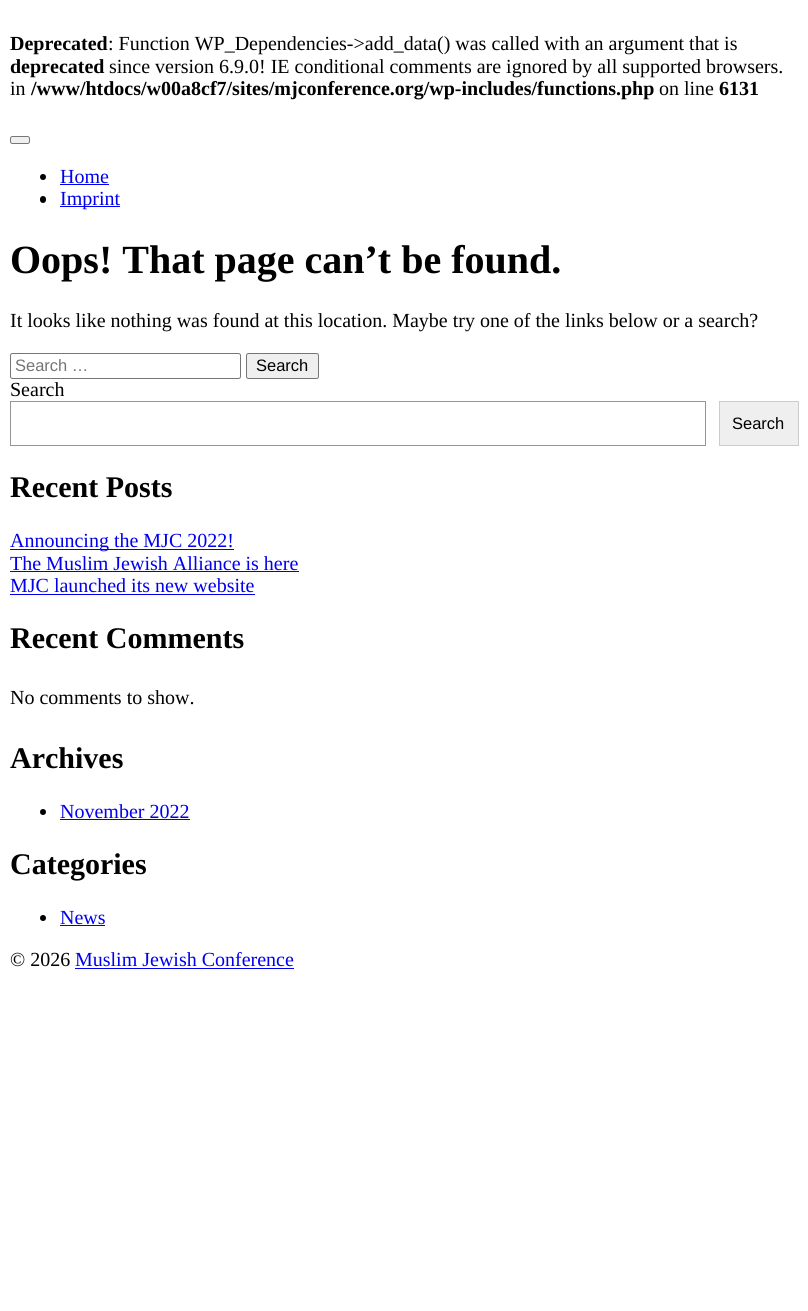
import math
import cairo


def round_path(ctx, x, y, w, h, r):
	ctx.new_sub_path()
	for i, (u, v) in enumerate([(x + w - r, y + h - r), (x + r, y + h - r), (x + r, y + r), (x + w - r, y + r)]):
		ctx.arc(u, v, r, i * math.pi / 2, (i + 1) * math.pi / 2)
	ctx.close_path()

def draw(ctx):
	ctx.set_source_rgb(1, 1, 1)
	ctx.paint()
	ctx.select_font_face('Liberation Serif', cairo.FONT_SLANT_NORMAL, cairo.FONT_WEIGHT_BOLD)
	ctx.set_font_size(20)
	ctx.set_source_rgb(0, 0, 0)
	ctx.move_to(10, 50)
	ctx.show_text('Deprecated')
	ctx.select_font_face('Liberation Serif')
	ctx.move_to(108, 50)
	ctx.show_text(': Function WP_Dependencies->add_data() was called with an argument that is')
	ctx.select_font_face('Liberation Serif', cairo.FONT_SLANT_NORMAL, cairo.FONT_WEIGHT_BOLD)
	ctx.move_to(10, 73)
	ctx.show_text('deprecated')
	ctx.select_font_face('Liberation Serif')
	ctx.move_to(109, 73)
	ctx.show_text('since version 6.9.0! IE conditional comments are ignored by all supported browsers.')
	ctx.move_to(10, 95)
	ctx.show_text('in')
	ctx.select_font_face('Liberation Serif', cairo.FONT_SLANT_NORMAL, cairo.FONT_WEIGHT_BOLD)
	ctx.move_to(31, 95)
	ctx.show_text('/www/htdocs/w00a8cf7/sites/mjconference.org/wp-includes/functions.php')
	ctx.select_font_face('Liberation Serif')
	ctx.move_to(659, 95)
	ctx.show_text('on line')
	ctx.select_font_face('Liberation Serif', cairo.FONT_SLANT_NORMAL, cairo.FONT_WEIGHT_BOLD)
	ctx.move_to(719, 95)
	ctx.show_text('6131')
	ctx.set_source_rgb(0.937, 0.937, 0.937)
	round_path(ctx, 10.5, 136.5, 19, 7, 2)
	ctx.fill_preserve()
	ctx.set_source_rgb(0.463, 0.463, 0.463)
	ctx.set_line_width(1)
	ctx.stroke()
	ctx.set_source_rgb(0, 0, 0)
	ctx.arc(43, 177, 3, 0, 2 * math.pi)
	ctx.fill()
	ctx.select_font_face('Liberation Serif')
	ctx.set_source_rgb(0, 0, 0.933)
	ctx.move_to(60, 183)
	ctx.show_text('Home')
	ctx.rectangle(60, 184, 49, 1)
	ctx.fill()
	ctx.set_source_rgb(0, 0, 0)
	round_path(ctx, 40, 196, 6, 7, 3)
	ctx.fill()
	ctx.set_source_rgb(0, 0, 0.933)
	ctx.rectangle(60, 206, 60, 1)
	ctx.fill()
	ctx.move_to(60, 205)
	ctx.show_text('Imprint')
	ctx.select_font_face('Liberation Serif', cairo.FONT_SLANT_NORMAL, cairo.FONT_WEIGHT_BOLD)
	ctx.set_font_size(40)
	ctx.set_source_rgb(0, 0, 0)
	ctx.move_to(10, 273)
	ctx.show_text('Oops! That page can’t be found.')
	ctx.select_font_face('Liberation Serif')
	ctx.set_font_size(20)
	ctx.move_to(10, 327)
	ctx.show_text('It looks like nothing was found at this location. Maybe try one of the links below or a search?')
	round_path(ctx, 10.5, 353.5, 230, 25, 2)
	ctx.set_source_rgb(0.463, 0.463, 0.463)
	ctx.stroke()
	ctx.select_font_face('Liberation Sans')
	ctx.set_font_size(16.5)
	ctx.set_source_rgb(0.459, 0.459, 0.459)
	ctx.move_to(15, 371)
	ctx.show_text('Search …')
	ctx.set_source_rgb(0.937, 0.937, 0.937)
	round_path(ctx, 246.5, 353.5, 72, 25, 2)
	ctx.fill_preserve()
	ctx.set_source_rgb(0.463, 0.463, 0.463)
	ctx.stroke()
	ctx.set_source_rgb(0, 0, 0)
	ctx.move_to(256, 371)
	ctx.show_text('Search')
	ctx.select_font_face('Liberation Serif')
	ctx.set_font_size(20)
	ctx.move_to(10, 396)
	ctx.show_text('Search')
	ctx.rectangle(10.5, 401.5, 695, 44)
	ctx.set_source_rgb(0.58, 0.58, 0.58)
	ctx.stroke()
	ctx.set_source_rgb(0.937, 0.937, 0.937)
	ctx.rectangle(719.5, 401.5, 79, 44)
	ctx.fill_preserve()
	ctx.set_source_rgb(0.8, 0.8, 0.8)
	ctx.stroke()
	ctx.select_font_face('Liberation Sans')
	ctx.set_font_size(16.5)
	ctx.set_source_rgb(0, 0, 0)
	ctx.move_to(732, 429)
	ctx.show_text('Search')
	ctx.select_font_face('Liberation Serif', cairo.FONT_SLANT_NORMAL, cairo.FONT_WEIGHT_BOLD)
	ctx.set_font_size(30)
	ctx.move_to(10, 497)
	ctx.show_text('Recent Posts')
	ctx.set_source_rgb(0, 0, 0.933)
	ctx.rectangle(10, 549, 224, 1)
	ctx.fill()
	ctx.select_font_face('Liberation Serif')
	ctx.set_font_size(20)
	ctx.move_to(10, 547)
	ctx.show_text('Announcing the MJC 2022!')
	ctx.move_to(10, 570)
	ctx.show_text('The Muslim Jewish Alliance is here')
	ctx.rectangle(10, 571, 289, 1)
	ctx.fill()
	ctx.move_to(10, 592)
	ctx.show_text('MJC launched its new website')
	ctx.rectangle(10, 594, 245, 1)
	ctx.fill()
	ctx.select_font_face('Liberation Serif', cairo.FONT_SLANT_NORMAL, cairo.FONT_WEIGHT_BOLD)
	ctx.set_font_size(30)
	ctx.set_source_rgb(0, 0, 0)
	ctx.move_to(10, 648)
	ctx.show_text('Recent Comments')
	ctx.select_font_face('Liberation Serif')
	ctx.set_font_size(20)
	ctx.move_to(10, 704)
	ctx.show_text('No comments to show.')
	ctx.select_font_face('Liberation Serif', cairo.FONT_SLANT_NORMAL, cairo.FONT_WEIGHT_BOLD)
	ctx.set_font_size(30)
	ctx.move_to(10, 768)
	ctx.show_text('Archives')
	ctx.new_path()
	ctx.arc(43, 812, 3, 0, 2 * math.pi)
	ctx.fill()
	ctx.select_font_face('Liberation Serif')
	ctx.set_font_size(20)
	ctx.set_source_rgb(0, 0, 0.933)
	ctx.move_to(60, 818)
	ctx.show_text('November 2022')
	ctx.rectangle(60, 819, 130, 1)
	ctx.fill()
	ctx.select_font_face('Liberation Serif', cairo.FONT_SLANT_NORMAL, cairo.FONT_WEIGHT_BOLD)
	ctx.set_font_size(30)
	ctx.set_source_rgb(0, 0, 0)
	ctx.move_to(10, 874)
	ctx.show_text('Categories')
	ctx.new_path()
	ctx.arc(43, 918, 3, 0, 2 * math.pi)
	ctx.fill()
	ctx.select_font_face('Liberation Serif')
	ctx.set_font_size(20)
	ctx.set_source_rgb(0, 0, 0.933)
	ctx.move_to(60, 924)
	ctx.show_text('News')
	ctx.rectangle(60, 925, 45, 1)
	ctx.fill()
	ctx.set_source_rgb(0, 0, 0)
	ctx.move_to(10, 966)
	ctx.show_text('© 2026')
	ctx.set_source_rgb(0, 0, 0.933)
	ctx.move_to(75, 966)
	ctx.show_text('Muslim Jewish Conference')
	ctx.rectangle(75, 968, 219, 1)
	ctx.fill()


surface = cairo.ImageSurface(cairo.FORMAT_RGB24, 808, 1311)
ctx = cairo.Context(surface)
options = cairo.FontOptions()
options.set_hint_metrics(cairo.HINT_METRICS_OFF)
options.set_hint_style(cairo.HINT_STYLE_NONE)
ctx.set_font_options(options)
ctx.set_miter_limit(4)
draw(ctx)
surface.write_to_png('image.png')
